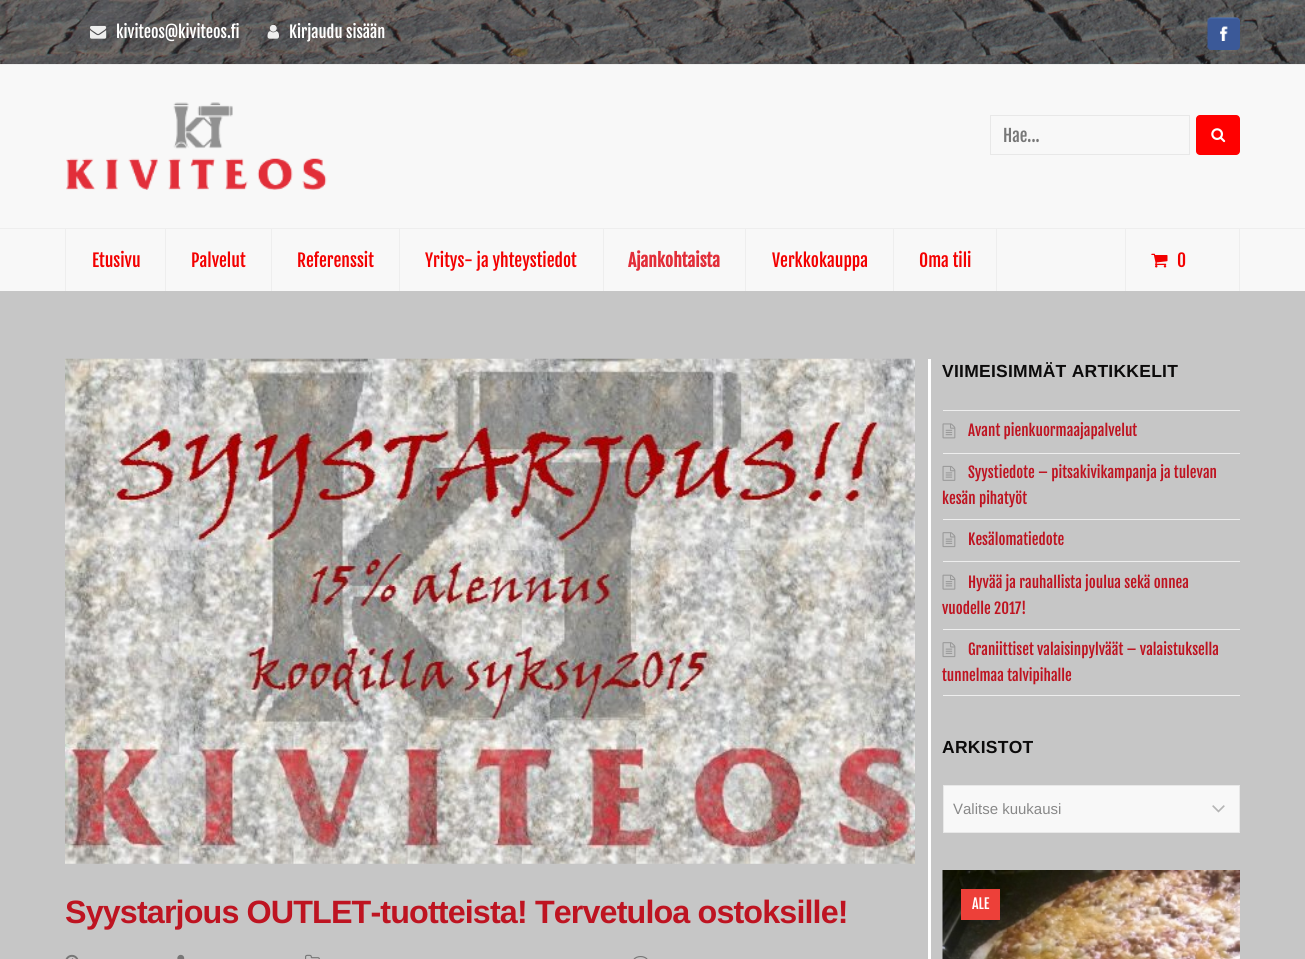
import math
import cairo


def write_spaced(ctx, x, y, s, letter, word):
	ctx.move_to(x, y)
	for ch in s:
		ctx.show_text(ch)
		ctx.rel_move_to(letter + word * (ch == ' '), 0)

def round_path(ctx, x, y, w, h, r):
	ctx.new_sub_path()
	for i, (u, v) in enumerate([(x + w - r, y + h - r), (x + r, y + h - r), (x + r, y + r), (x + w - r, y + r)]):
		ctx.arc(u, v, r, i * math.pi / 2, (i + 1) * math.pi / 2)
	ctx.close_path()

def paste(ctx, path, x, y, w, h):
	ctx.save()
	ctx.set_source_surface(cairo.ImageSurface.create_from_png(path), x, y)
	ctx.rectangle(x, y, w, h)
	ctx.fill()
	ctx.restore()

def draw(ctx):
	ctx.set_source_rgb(0.776, 0.776, 0.776)
	ctx.paint()
	paste(ctx, 'media/1.png', 0, 0, 1305, 64)
	ctx.set_source_rgb(0.933, 0.933, 0.933)
	ctx.rectangle(0, 64, 1305, 1)
	ctx.fill()
	paste(ctx, 'media/2.png', 90, 25, 17, 14)
	ctx.select_font_face('Fjalla One')
	ctx.set_font_size(16.25)
	ctx.set_source_rgb(1, 1, 1)
	ctx.move_to(116, 38)
	ctx.show_text('kiviteos@kiviteos.fi')
	paste(ctx, 'media/3.png', 267, 24, 12, 15)
	ctx.move_to(289, 38)
	ctx.show_text('Kirjaudu sisään')
	paste(ctx, 'media/4.png', 1207, 17, 33, 33)
	ctx.set_source_rgb(0.969, 0.969, 0.969)
	ctx.rectangle(0, 65, 1305, 226)
	ctx.fill()
	paste(ctx, 'media/5.png', 66, 102, 261, 88)
	ctx.rectangle(990.5, 115.5, 199, 39)
	ctx.set_source_rgb(0.91, 0.91, 0.91)
	ctx.set_line_width(1)
	ctx.stroke()
	ctx.set_font_size(17)
	ctx.set_source_rgb(0.467, 0.467, 0.467)
	ctx.move_to(1003, 142)
	ctx.show_text('Hae...')
	ctx.set_source_rgb(1, 0, 0)
	round_path(ctx, 1196, 115, 44, 40, 4)
	ctx.fill()
	paste(ctx, 'media/6.png', 1211, 128, 15, 15)
	ctx.set_source_rgb(0.933, 0.933, 0.933)
	ctx.rectangle(0, 228, 1305, 1)
	ctx.rectangle(1239, 229, 1, 62)
	ctx.rectangle(65, 229, 1, 62)
	ctx.rectangle(165, 229, 1, 62)
	ctx.fill()
	ctx.set_font_size(17.5)
	ctx.set_source_rgb(0.953, 0, 0)
	ctx.move_to(92, 267)
	ctx.show_text('Etusivu')
	ctx.set_source_rgb(0.933, 0.933, 0.933)
	ctx.rectangle(271, 229, 1, 62)
	ctx.fill()
	ctx.set_source_rgb(0.953, 0, 0)
	ctx.move_to(191, 267)
	ctx.show_text('Palvelut')
	ctx.set_source_rgb(0.933, 0.933, 0.933)
	ctx.rectangle(399, 229, 1, 62)
	ctx.fill()
	ctx.set_source_rgb(0.953, 0, 0)
	ctx.move_to(297, 267)
	ctx.show_text('Referenssit')
	ctx.set_source_rgb(0.933, 0.933, 0.933)
	ctx.rectangle(603, 229, 1, 62)
	ctx.fill()
	ctx.set_source_rgb(0.953, 0, 0)
	ctx.move_to(425, 267)
	ctx.show_text('Yritys- ja yhteystiedot')
	ctx.set_source_rgb(0.933, 0.933, 0.933)
	ctx.rectangle(745, 229, 1, 62)
	ctx.fill()
	ctx.select_font_face('Fjalla One', cairo.FONT_SLANT_NORMAL, cairo.FONT_WEIGHT_BOLD)
	ctx.set_source_rgb(0.886, 0.18, 0.224)
	ctx.move_to(628, 267)
	ctx.show_text('Ajankohtaista')
	ctx.set_source_rgb(0.933, 0.933, 0.933)
	ctx.rectangle(893, 229, 1, 62)
	ctx.fill()
	ctx.select_font_face('Fjalla One')
	ctx.set_source_rgb(0.953, 0, 0)
	ctx.move_to(772, 267)
	ctx.show_text('Verkkokauppa')
	ctx.set_source_rgb(0.933, 0.933, 0.933)
	ctx.rectangle(996, 229, 1, 62)
	ctx.fill()
	ctx.set_source_rgb(0.953, 0, 0)
	ctx.move_to(919, 267)
	ctx.show_text('Oma tili')
	ctx.set_source_rgb(0.933, 0.933, 0.933)
	ctx.rectangle(1125, 229, 1, 62)
	ctx.fill()
	paste(ctx, 'media/7.png', 1151, 253, 17, 15)
	ctx.set_source_rgb(0.953, 0, 0)
	ctx.move_to(1177, 267)
	ctx.show_text('0')
	ctx.set_source_rgb(1, 1, 1)
	ctx.rectangle(928, 359, 3, 600)
	ctx.fill()
	ctx.select_font_face('Liberation Sans', cairo.FONT_SLANT_NORMAL, cairo.FONT_WEIGHT_BOLD)
	ctx.set_source_rgb(0.047, 0.043, 0.043)
	write_spaced(ctx, 942, 377, 'VIIMEISIMMÄT ARTIKKELIT', 0.25, 0)
	ctx.set_source_rgb(0.933, 0.933, 0.933)
	ctx.rectangle(943, 410, 297, 1)
	ctx.fill()
	ctx.rectangle(943, 453, 297, 1)
	ctx.fill()
	paste(ctx, 'media/8.png', 942, 423, 14, 16)
	ctx.select_font_face('Fjalla One')
	ctx.set_font_size(15)
	ctx.set_source_rgb(0.745, 0.082, 0.129)
	ctx.move_to(968, 436)
	ctx.show_text('Avant pienkuormaajapalvelut')
	ctx.set_source_rgb(0.933, 0.933, 0.933)
	ctx.rectangle(943, 519, 297, 1)
	ctx.fill()
	paste(ctx, 'media/9.png', 942, 465, 14, 16)
	ctx.set_source_rgb(0.745, 0.082, 0.129)
	ctx.move_to(968, 478)
	ctx.show_text('Syystiedote – pitsakivikampanja ja tulevan')
	ctx.move_to(942, 504)
	ctx.show_text('kesän pihatyöt')
	ctx.set_source_rgb(0.933, 0.933, 0.933)
	ctx.rectangle(943, 561, 297, 1)
	ctx.fill()
	paste(ctx, 'media/10.png', 942, 532, 14, 16)
	ctx.set_source_rgb(0.745, 0.082, 0.129)
	ctx.move_to(968, 545)
	ctx.show_text('Kesälomatiedote')
	ctx.set_source_rgb(0.933, 0.933, 0.933)
	ctx.rectangle(943, 629, 297, 1)
	ctx.fill()
	paste(ctx, 'media/11.png', 942, 574, 14, 16)
	ctx.set_source_rgb(0.745, 0.082, 0.129)
	ctx.move_to(968, 588)
	ctx.show_text('Hyvää ja rauhallista joulua sekä onnea')
	ctx.move_to(942, 614)
	ctx.show_text('vuodelle 2017!')
	ctx.set_source_rgb(0.933, 0.933, 0.933)
	ctx.rectangle(943, 695, 297, 1)
	ctx.fill()
	paste(ctx, 'media/10.png', 942, 642, 14, 16)
	ctx.set_source_rgb(0.745, 0.082, 0.129)
	ctx.move_to(968, 655)
	ctx.show_text('Graniittiset valaisinpylväät – valaistuksella')
	ctx.move_to(942, 681)
	ctx.show_text('tunnelmaa talvipihalle')
	ctx.select_font_face('Liberation Sans', cairo.FONT_SLANT_NORMAL, cairo.FONT_WEIGHT_BOLD)
	ctx.set_font_size(17.5)
	ctx.set_source_rgb(0.047, 0.043, 0.043)
	write_spaced(ctx, 942, 753, 'ARKISTOT', 0.25, 0)
	ctx.set_source_rgb(0.969, 0.969, 0.969)
	ctx.rectangle(943.5, 785.5, 296, 47)
	ctx.fill_preserve()
	ctx.set_source_rgb(0.91, 0.91, 0.91)
	ctx.stroke()
	ctx.select_font_face('Liberation Sans')
	ctx.set_font_size(15)
	ctx.set_source_rgb(0.533, 0.533, 0.533)
	ctx.move_to(953, 814)
	ctx.show_text('Valitse kuukausi')
	paste(ctx, 'media/12.png', 1212, 805, 13, 8)
	paste(ctx, 'media/13.png', 942, 870, 298, 89)
	ctx.set_source_rgb(0.929, 0.251, 0.224)
	ctx.rectangle(961, 889, 39, 31)
	ctx.fill()
	ctx.select_font_face('Fjalla One')
	ctx.set_font_size(14)
	ctx.set_source_rgb(1, 1, 1)
	ctx.move_to(972, 909)
	ctx.show_text('ALE')
	paste(ctx, 'media/14.png', 65, 358, 850, 506)
	ctx.select_font_face('Liberation Sans', cairo.FONT_SLANT_NORMAL, cairo.FONT_WEIGHT_BOLD)
	ctx.set_font_size(32.3)
	ctx.set_source_rgb(0.745, 0.082, 0.129)
	write_spaced(ctx, 65, 923, 'Syystarjous OUTLET-tuotteista! Tervetuloa ostoksille!', -0.88, 0)
	paste(ctx, 'media/15.png', 65, 954, 14, 5)
	paste(ctx, 'media/16.png', 177, 954, 8, 5)
	paste(ctx, 'media/17.png', 305, 954, 15, 5)
	paste(ctx, 'media/18.png', 633, 956, 15, 3)


surface = cairo.ImageSurface(cairo.FORMAT_RGB24, 1305, 959)
ctx = cairo.Context(surface)
options = cairo.FontOptions()
options.set_hint_metrics(cairo.HINT_METRICS_OFF)
options.set_hint_style(cairo.HINT_STYLE_NONE)
ctx.set_font_options(options)
ctx.set_miter_limit(4)
draw(ctx)
surface.write_to_png('image.png')
